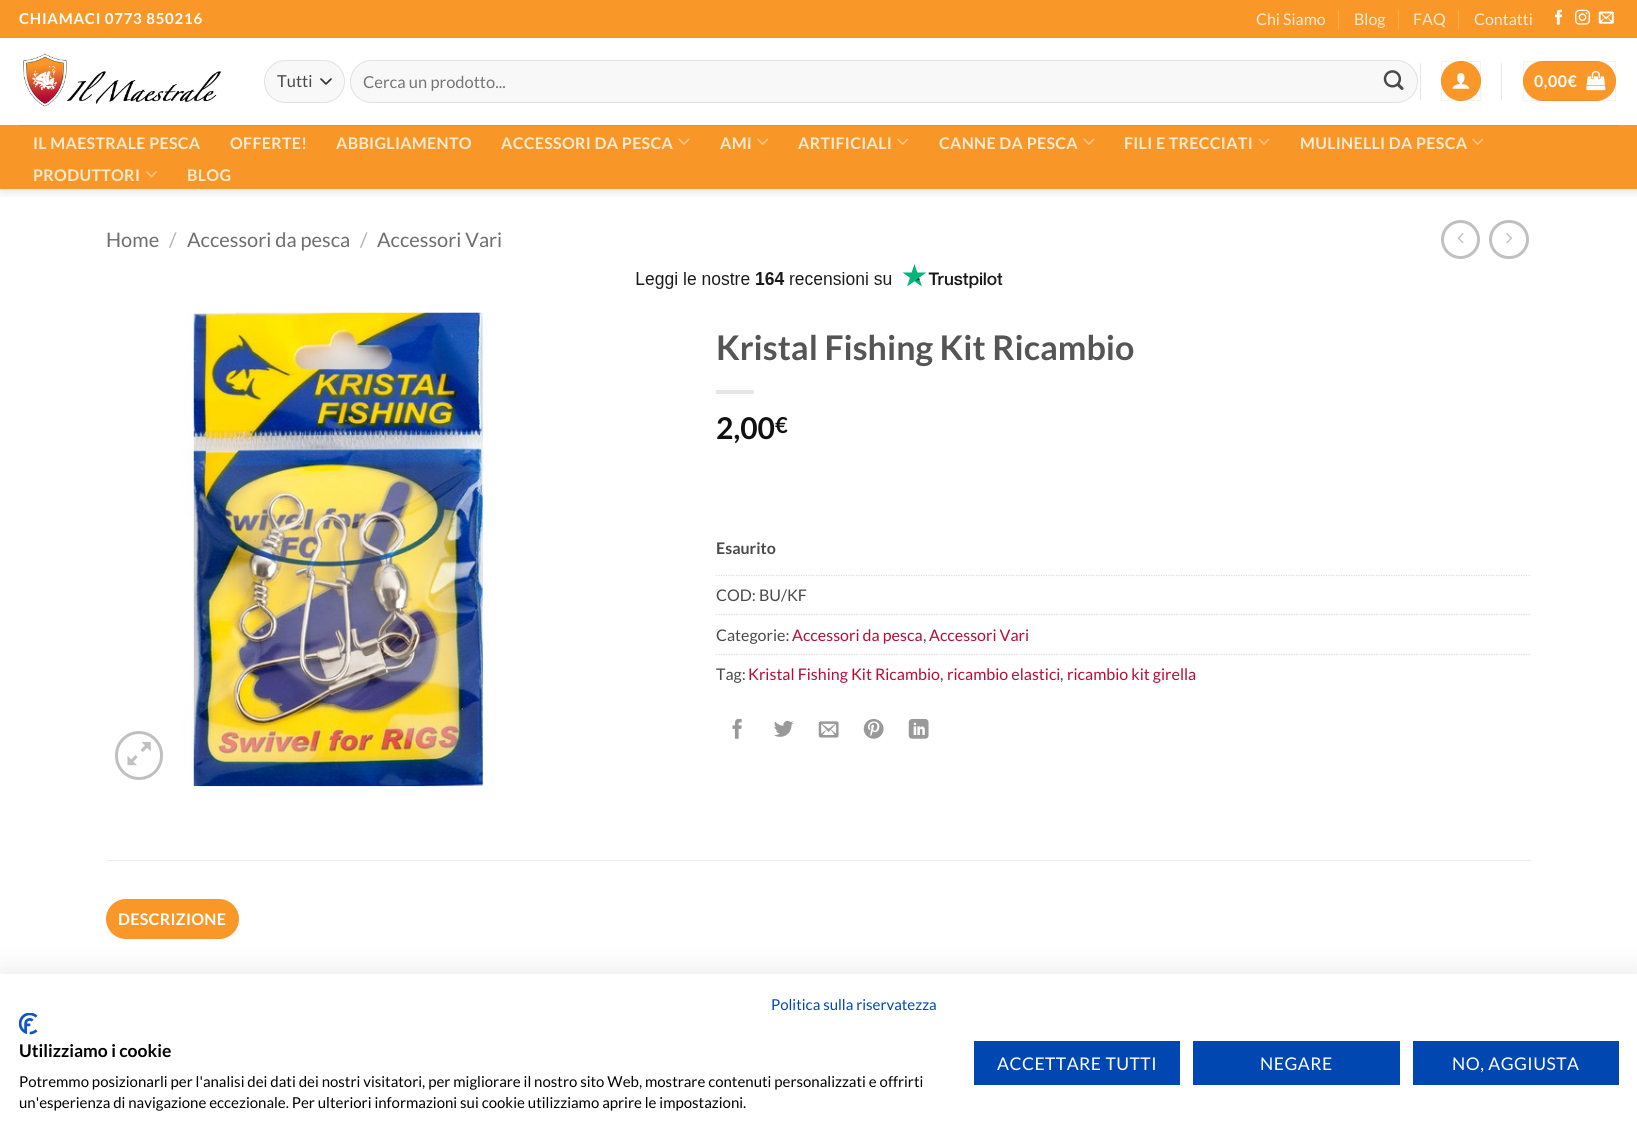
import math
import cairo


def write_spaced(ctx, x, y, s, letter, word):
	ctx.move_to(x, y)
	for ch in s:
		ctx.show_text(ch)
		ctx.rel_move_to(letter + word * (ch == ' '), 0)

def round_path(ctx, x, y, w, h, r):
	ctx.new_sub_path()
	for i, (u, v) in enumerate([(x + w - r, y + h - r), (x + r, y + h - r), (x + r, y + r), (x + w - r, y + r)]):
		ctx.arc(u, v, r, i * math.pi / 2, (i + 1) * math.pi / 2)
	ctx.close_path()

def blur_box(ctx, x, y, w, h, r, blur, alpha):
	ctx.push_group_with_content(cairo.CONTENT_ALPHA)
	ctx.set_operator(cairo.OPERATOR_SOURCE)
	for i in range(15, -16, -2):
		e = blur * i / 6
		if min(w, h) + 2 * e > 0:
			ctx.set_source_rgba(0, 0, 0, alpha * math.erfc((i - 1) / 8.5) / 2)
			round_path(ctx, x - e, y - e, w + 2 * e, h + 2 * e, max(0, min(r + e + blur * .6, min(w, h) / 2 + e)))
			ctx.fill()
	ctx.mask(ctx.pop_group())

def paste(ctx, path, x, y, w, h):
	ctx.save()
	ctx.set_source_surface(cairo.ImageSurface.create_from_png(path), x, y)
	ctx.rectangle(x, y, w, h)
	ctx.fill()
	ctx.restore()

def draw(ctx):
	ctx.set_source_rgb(1, 1, 1)
	ctx.paint()
	ctx.save()
	ctx.rectangle(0, 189, 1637, 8)
	ctx.clip()
	ctx.set_source_rgb(0, 0, 0)
	blur_box(ctx, 1, 1, 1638, 189, 0, 6, 0.15)
	ctx.restore()
	ctx.set_source_rgb(0.976, 0.592, 0.157)
	ctx.rectangle(0, 0, 1637, 38)
	ctx.fill()
	ctx.select_font_face('Lato', cairo.FONT_SLANT_NORMAL, cairo.FONT_WEIGHT_BOLD)
	ctx.set_font_size(15)
	ctx.set_source_rgb(1, 1, 1)
	write_spaced(ctx, 19, 24, 'CHIAMACI 0773 850216', 0.75, 0)
	ctx.select_font_face('Lato')
	ctx.set_font_size(16)
	ctx.set_source_rgb(0.996, 0.918, 0.831)
	ctx.move_to(1256, 25)
	ctx.show_text('Chi Siamo')
	ctx.set_source_rgb(0.98, 0.675, 0.325)
	ctx.rectangle(1338, 10, 1, 19)
	ctx.fill()
	ctx.set_source_rgb(0.996, 0.918, 0.831)
	ctx.move_to(1354, 25)
	ctx.show_text('Blog')
	ctx.set_source_rgb(0.98, 0.675, 0.325)
	ctx.rectangle(1398, 10, 1, 19)
	ctx.fill()
	ctx.set_source_rgb(0.996, 0.918, 0.831)
	ctx.move_to(1413, 25)
	ctx.show_text('FAQ')
	ctx.set_source_rgb(0.98, 0.675, 0.325)
	ctx.rectangle(1458, 10, 1, 19)
	ctx.fill()
	ctx.set_source_rgb(0.996, 0.918, 0.831)
	ctx.move_to(1474, 25)
	ctx.show_text('Contatti')
	paste(ctx, 'media/1.png', 1555, 9, 7, 16)
	paste(ctx, 'media/2.png', 1575, 9, 15, 16)
	paste(ctx, 'media/3.png', 1598, 11, 16, 13)
	paste(ctx, 'media/4.png', 23, 53, 198, 54)
	ctx.set_source_rgb(0.969, 0.969, 0.969)
	round_path(ctx, 264, 60, 81, 43, 21.5)
	ctx.fill()
	ctx.new_path()
	ctx.move_to(321, 79)
	ctx.line_to(326, 84)
	ctx.line_to(331, 79)
	ctx.set_source_rgb(0.2, 0.2, 0.2)
	ctx.set_line_width(1.7)
	ctx.set_line_cap(cairo.LINE_CAP_ROUND)
	ctx.set_line_join(cairo.LINE_JOIN_ROUND)
	ctx.stroke()
	round_path(ctx, 264.5, 60.5, 80, 42, 21)
	ctx.set_source_rgba(0, 0, 0, 0.09)
	ctx.set_line_width(1)
	ctx.set_line_cap(cairo.LINE_CAP_BUTT)
	ctx.set_line_join(cairo.LINE_JOIN_MITER)
	ctx.stroke()
	ctx.set_font_size(16.5)
	ctx.set_source_rgb(0.29, 0.29, 0.29)
	ctx.move_to(277, 87)
	ctx.show_text('Tutti')
	ctx.set_source_rgb(0.969, 0.969, 0.969)
	round_path(ctx, 350, 60, 1068, 43, 21.5)
	ctx.fill()
	round_path(ctx, 350.5, 60.5, 1067, 42, 21)
	ctx.set_source_rgba(0, 0, 0, 0.09)
	ctx.stroke()
	ctx.set_source_rgb(0.459, 0.459, 0.459)
	ctx.move_to(363, 88)
	ctx.show_text('Cerca un prodotto...')
	paste(ctx, 'media/5.png', 1383, 70, 21, 20)
	ctx.set_source_rgb(0.902, 0.902, 0.902)
	ctx.rectangle(1420, 63, 1, 37)
	ctx.fill()
	ctx.set_source_rgb(0.976, 0.592, 0.157)
	ctx.arc(1461, 81, 20, 0, 2 * math.pi)
	ctx.fill()
	ctx.rectangle(1441.5, 61.5, 39, 39)
	ctx.set_source_rgba(0, 0, 0, 0.05)
	ctx.stroke()
	paste(ctx, 'media/6.png', 1452, 73, 18, 16)
	ctx.set_source_rgb(0.902, 0.902, 0.902)
	ctx.rectangle(1501, 63, 1, 37)
	ctx.fill()
	ctx.set_source_rgb(0.976, 0.592, 0.157)
	round_path(ctx, 1523, 61, 93, 40, 20)
	ctx.fill()
	ctx.rectangle(1523.5, 61.5, 92, 39)
	ctx.set_source_rgba(0, 0, 0, 0.05)
	ctx.stroke()
	ctx.select_font_face('Lato', cairo.FONT_SLANT_NORMAL, cairo.FONT_WEIGHT_BOLD)
	ctx.set_font_size(16)
	ctx.set_source_rgb(1, 1, 1)
	write_spaced(ctx, 1534, 87, '0,00€', 0.5, 0)
	paste(ctx, 'media/7.png', 1586, 70, 20, 21)
	ctx.set_source_rgb(0.973, 0.588, 0.157)
	ctx.rectangle(0, 125, 1637, 64)
	ctx.fill()
	ctx.set_source_rgb(0.906, 0.557, 0.169)
	ctx.rectangle(19, 125, 1600, 1)
	ctx.fill()
	ctx.set_source_rgb(0.996, 0.918, 0.831)
	for x, y, s in [
		(33, 149, 'IL MAESTRALE PESCA'),
		(230, 149, 'OFFERTE!'),
		(336, 149, 'ABBIGLIAMENTO'),
		(501, 149, 'ACCESSORI DA PESCA'),
	]:
		write_spaced(ctx, x, y, s, 0.3, 0)
	paste(ctx, 'media/8.png', 678, 138, 12, 7)
	write_spaced(ctx, 720, 149, 'AMI', 0.3, 0)
	paste(ctx, 'media/9.png', 757, 138, 12, 7)
	write_spaced(ctx, 798, 149, 'ARTIFICIALI', 0.3, 0)
	paste(ctx, 'media/9.png', 897, 138, 12, 7)
	write_spaced(ctx, 939, 149, 'CANNE DA PESCA', 0.3, 0)
	paste(ctx, 'media/8.png', 1083, 138, 12, 7)
	write_spaced(ctx, 1124, 149, 'FILI E TRECCIATI', 0.3, 0)
	paste(ctx, 'media/8.png', 1258, 138, 12, 7)
	write_spaced(ctx, 1300, 149, 'MULINELLI DA PESCA', 0.3, 0)
	paste(ctx, 'media/9.png', 1472, 138, 12, 7)
	write_spaced(ctx, 33, 181, 'PRODUTTORI', 0.3, 0)
	paste(ctx, 'media/10.png', 146, 171, 11, 7)
	write_spaced(ctx, 187, 181, 'BLOG', 0.3, 0)
	ctx.select_font_face('Lato')
	ctx.set_font_size(20)
	ctx.set_source_rgb(0.431, 0.431, 0.431)
	ctx.move_to(106, 247)
	ctx.show_text('Home')
	ctx.set_source_rgb(0.698, 0.698, 0.698)
	ctx.move_to(169, 247)
	ctx.show_text('/')
	ctx.set_source_rgb(0.431, 0.431, 0.431)
	ctx.move_to(187, 247)
	ctx.show_text('Accessori da pesca')
	ctx.set_source_rgb(0.698, 0.698, 0.698)
	ctx.move_to(360, 247)
	ctx.show_text('/')
	ctx.set_source_rgb(0.431, 0.431, 0.431)
	ctx.move_to(377, 247)
	ctx.show_text('Accessori Vari')
	ctx.new_path()
	ctx.arc(1460.5, 239.5, 18, 0, 2 * math.pi)
	ctx.set_source_rgb(0.753, 0.753, 0.753)
	ctx.set_line_width(3)
	ctx.stroke()
	paste(ctx, 'media/11.png', 1457, 233, 7, 11)
	round_path(ctx, 1490.5, 221.5, 37, 36, 18)
	ctx.stroke()
	paste(ctx, 'media/12.png', 1506, 233, 7, 11)
	paste(ctx, 'media/13.png', 636, 264, 367, 25)
	round_path(ctx, 116.5, 732.5, 45, 46, 22.5)
	ctx.stroke()
	paste(ctx, 'media/14.png', 127, 741, 24, 25)
	paste(ctx, 'media/15.png', 182, 312, 302, 475)
	ctx.select_font_face('Lato', cairo.FONT_SLANT_NORMAL, cairo.FONT_WEIGHT_BOLD)
	ctx.set_font_size(34)
	ctx.set_source_rgb(0.333, 0.333, 0.333)
	ctx.move_to(716, 360)
	ctx.show_text('Kristal Fishing Kit Ricambio')
	ctx.set_source_rgb(0.902, 0.902, 0.902)
	ctx.rectangle(716, 390, 38, 4)
	ctx.fill()
	ctx.set_font_size(30)
	ctx.set_source_rgb(0.067, 0.067, 0.067)
	ctx.move_to(716, 439)
	ctx.show_text('2,00')
	ctx.set_font_size(22)
	ctx.move_to(775, 433)
	ctx.show_text('€')
	ctx.set_font_size(16)
	ctx.set_source_rgb(0.29, 0.29, 0.29)
	ctx.move_to(716, 554)
	ctx.show_text('Esaurito')
	ctx.new_path()
	ctx.move_to(716, 575.5)
	ctx.line_to(1531, 575.5)
	ctx.set_source_rgb(0.867, 0.867, 0.867)
	ctx.set_line_width(1.2)
	ctx.set_dash([1.25, 1.25])
	ctx.stroke()
	ctx.select_font_face('Lato')
	ctx.set_source_rgb(0.29, 0.29, 0.29)
	ctx.move_to(716, 601)
	ctx.show_text('COD: BU/KF')
	ctx.new_path()
	ctx.move_to(716, 614.5)
	ctx.line_to(1531, 614.5)
	ctx.set_source_rgb(0.867, 0.867, 0.867)
	ctx.stroke()
	ctx.set_source_rgb(0.29, 0.29, 0.29)
	ctx.move_to(716, 641)
	ctx.show_text('Categorie:')
	ctx.set_source_rgb(0.714, 0.051, 0.212)
	ctx.move_to(792, 641)
	ctx.show_text('Accessori da pesca')
	ctx.set_source_rgb(0.29, 0.29, 0.29)
	ctx.move_to(923, 641)
	ctx.show_text(',')
	ctx.set_source_rgb(0.714, 0.051, 0.212)
	ctx.move_to(929, 641)
	ctx.show_text('Accessori Vari')
	ctx.new_path()
	ctx.move_to(716, 654.5)
	ctx.line_to(1531, 654.5)
	ctx.set_source_rgb(0.867, 0.867, 0.867)
	ctx.stroke()
	ctx.set_source_rgb(0.29, 0.29, 0.29)
	ctx.move_to(716, 680)
	ctx.show_text('Tag:')
	ctx.set_source_rgb(0.714, 0.051, 0.212)
	ctx.move_to(748, 680)
	ctx.show_text('Kristal Fishing Kit Ricambio')
	ctx.set_source_rgb(0.29, 0.29, 0.29)
	ctx.move_to(940, 680)
	ctx.show_text(',')
	ctx.set_source_rgb(0.714, 0.051, 0.212)
	ctx.move_to(947, 680)
	ctx.show_text('ricambio elastici')
	ctx.set_source_rgb(0.29, 0.29, 0.29)
	ctx.move_to(1060, 680)
	ctx.show_text(',')
	ctx.set_source_rgb(0.714, 0.051, 0.212)
	ctx.move_to(1067, 680)
	ctx.show_text('ricambio kit girella')
	paste(ctx, 'media/16.png', 732, 718, 10, 21)
	paste(ctx, 'media/17.png', 774, 720, 20, 17)
	paste(ctx, 'media/18.png', 818, 721, 21, 17)
	paste(ctx, 'media/19.png', 863, 719, 21, 20)
	paste(ctx, 'media/20.png', 908, 718, 21, 21)
	ctx.set_source_rgb(0.925, 0.925, 0.925)
	ctx.rectangle(106, 860, 1425, 1)
	ctx.fill()
	ctx.set_source_rgb(0.976, 0.592, 0.157)
	round_path(ctx, 106, 899, 133, 40, 20)
	ctx.fill()
	ctx.select_font_face('Lato', cairo.FONT_SLANT_NORMAL, cairo.FONT_WEIGHT_BOLD)
	ctx.set_source_rgb(1, 1, 1)
	write_spaced(ctx, 118, 925, 'DESCRIZIONE', 0.3, 0)
	ctx.set_source_rgb(0, 0, 0)
	blur_box(ctx, 0, 974, 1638, 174, 0, 15, 0.1)
	ctx.set_source_rgb(1, 1, 1)
	ctx.rectangle(0, 974, 1637, 173)
	ctx.fill()
	ctx.select_font_face('Lato')
	ctx.set_font_size(15)
	ctx.set_source_rgb(0, 0.278, 0.698)
	ctx.move_to(771, 1010)
	ctx.show_text('Politica sulla riservatezza')
	paste(ctx, 'media/21.png', 19, 1013, 19, 22)
	ctx.select_font_face('Lato', cairo.FONT_SLANT_NORMAL, cairo.FONT_WEIGHT_BOLD)
	ctx.set_font_size(17.5)
	ctx.set_source_rgb(0, 0, 0)
	ctx.move_to(19, 1057)
	ctx.show_text('Utilizziamo i cookie')
	ctx.select_font_face('Lato')
	ctx.set_font_size(15)
	ctx.move_to(19, 1087)
	ctx.show_text('Potremmo posizionarli per l\'analisi dei dati dei nostri visitatori, per migliorare il nostro sito Web, mostrare contenuti personalizzati e offrirti')
	ctx.move_to(19, 1108)
	ctx.show_text('un\'esperienza di navigazione eccezionale. Per ulteriori informazioni sui cookie utilizziamo aprire le impostazioni.')
	ctx.set_source_rgb(0, 0.278, 0.698)
	ctx.rectangle(974, 1041, 206, 44)
	ctx.fill()
	ctx.set_font_size(17.5)
	ctx.set_source_rgb(1, 1, 1)
	write_spaced(ctx, 997, 1070, 'ACCETTARE TUTTI', 0.5, 0)
	ctx.set_source_rgb(0, 0.278, 0.698)
	ctx.rectangle(1193, 1041, 207, 44)
	ctx.fill()
	ctx.set_source_rgb(1, 1, 1)
	write_spaced(ctx, 1260, 1070, 'NEGARE', 0.5, 0)
	ctx.set_source_rgb(0, 0.278, 0.698)
	ctx.rectangle(1413, 1041, 206, 44)
	ctx.fill()
	ctx.set_source_rgb(1, 1, 1)
	write_spaced(ctx, 1452, 1070, 'NO, AGGIUSTA', 0.5, 0)


surface = cairo.ImageSurface(cairo.FORMAT_RGB24, 1637, 1147)
ctx = cairo.Context(surface)
options = cairo.FontOptions()
options.set_hint_metrics(cairo.HINT_METRICS_OFF)
options.set_hint_style(cairo.HINT_STYLE_NONE)
ctx.set_font_options(options)
ctx.set_miter_limit(4)
draw(ctx)
surface.write_to_png('image.png')
